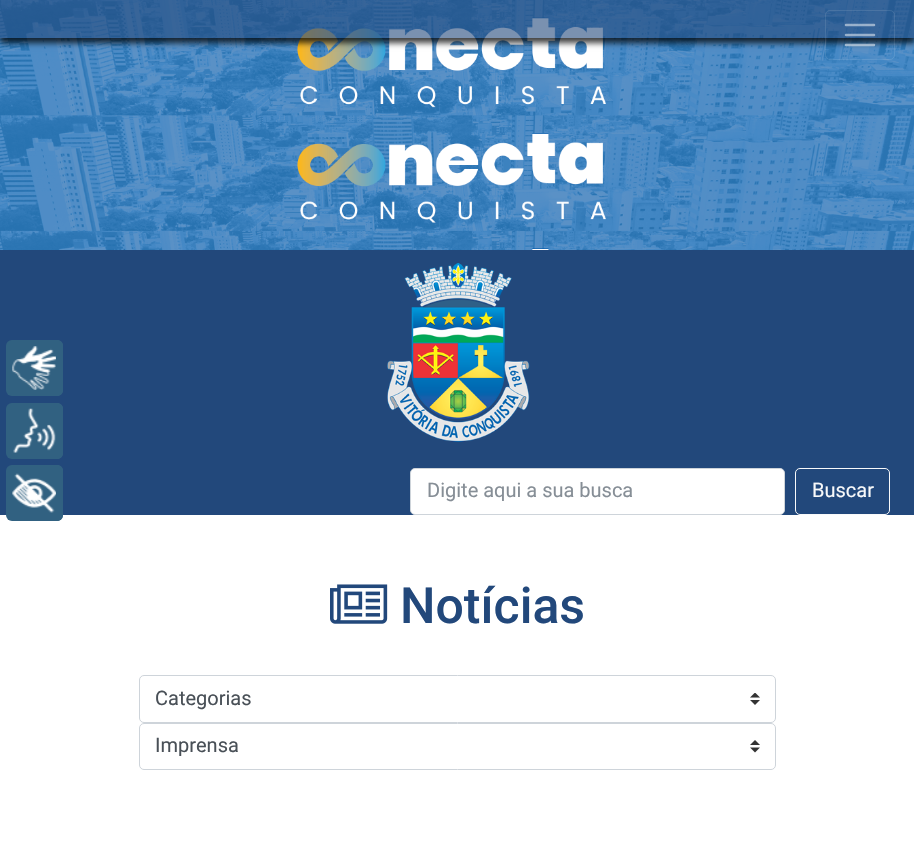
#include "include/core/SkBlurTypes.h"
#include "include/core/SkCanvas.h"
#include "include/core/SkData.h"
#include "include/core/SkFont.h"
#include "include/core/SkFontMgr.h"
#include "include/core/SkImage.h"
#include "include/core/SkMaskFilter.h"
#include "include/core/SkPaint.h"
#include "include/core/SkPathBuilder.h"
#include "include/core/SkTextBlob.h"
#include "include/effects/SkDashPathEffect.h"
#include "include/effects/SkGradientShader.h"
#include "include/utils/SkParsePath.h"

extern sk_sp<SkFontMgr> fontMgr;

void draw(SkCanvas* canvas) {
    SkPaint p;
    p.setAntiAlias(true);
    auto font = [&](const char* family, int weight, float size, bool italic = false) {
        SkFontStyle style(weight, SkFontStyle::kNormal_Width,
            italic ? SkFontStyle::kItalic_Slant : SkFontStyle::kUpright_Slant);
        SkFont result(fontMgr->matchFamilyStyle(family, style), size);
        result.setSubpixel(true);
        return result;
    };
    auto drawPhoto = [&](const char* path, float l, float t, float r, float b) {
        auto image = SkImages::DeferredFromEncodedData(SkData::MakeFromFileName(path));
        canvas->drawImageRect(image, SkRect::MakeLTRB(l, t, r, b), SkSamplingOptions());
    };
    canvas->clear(0xFFFFFFFF);
    drawPhoto("media/1.png", 0, 0, 914, 250);
    canvas->save();
    canvas->clipPath(SkPathBuilder(SkPathFillType::kEvenOdd).moveTo(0, 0).lineTo(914, 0).lineTo(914, 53).lineTo(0, 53).close().moveTo(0, 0).lineTo(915, 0).lineTo(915, 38).lineTo(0, 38).close().detach(), true);
    p.setColor(0xBF000000);
    p.setMaskFilter(SkMaskFilter::MakeBlur(kNormal_SkBlurStyle, 3));
    canvas->drawRect(SkRect::MakeLTRB(0, 5, 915, 43), p);
    p.setMaskFilter(nullptr);
    canvas->restore();
    p.setColor(0x9922487B);
    canvas->drawRect(SkRect::MakeLTRB(0, 0, 914, 38), p);
    p.setStyle(SkPaint::kStroke_Style);
    p.setStrokeWidth(1);
    p.setColor(0x1AFFFFFF);
    canvas->drawRoundRect(SkRect::MakeLTRB(825.5f, 10.5f, 894.5f, 59.5f), 4.5f, 4.5f, p);
    p.setStrokeWidth(2.5f);
    p.setStrokeCap(SkPaint::kRound_Cap);
    p.setColor(0x80FFFFFF);
    canvas->drawPath(SkPathBuilder().moveTo(846, 25).lineTo(874, 25).moveTo(846, 35).lineTo(874, 35).moveTo(846, 45).lineTo(874, 45).detach(), p);
    p.setStyle(SkPaint::kFill_Style);
    p.setColor(0xFF22487B);
    canvas->drawRect(SkRect::MakeLTRB(0, 250, 914, 515), p);
    p.setColor(0xFF316181);
    canvas->drawRoundRect(SkRect::MakeLTRB(6, 340, 63, 396), 6, 6, p);
    drawPhoto("media/2.png", 12, 346, 56, 390);
    canvas->drawPath(SkPathBuilder().moveTo(56, 340).lineTo(57, 340).cubicTo(60.5f, 340, 63, 342.5f, 63, 346).lineTo(63, 390).cubicTo(63, 393.5f, 60.5f, 396, 57, 396).lineTo(56, 396).close().detach(), p);
    canvas->drawRoundRect(SkRect::MakeLTRB(6, 403, 63, 459), 6, 6, p);
    drawPhoto("media/3.png", 13, 408, 56, 453);
    canvas->drawPath(SkPathBuilder().moveTo(56, 403).lineTo(57, 403).cubicTo(60.5f, 403, 63, 405.5f, 63, 409).lineTo(63, 453).cubicTo(63, 456.5f, 60.5f, 459, 57, 459).lineTo(56, 459).close().detach(), p);
    canvas->drawRoundRect(SkRect::MakeLTRB(6, 465, 63, 521), 6, 6, p);
    drawPhoto("media/4.png", 12, 473, 56, 513);
    canvas->drawPath(SkPathBuilder().moveTo(56, 465).lineTo(57, 465).cubicTo(60.5f, 465, 63, 467.5f, 63, 471).lineTo(63, 515).cubicTo(63, 518.5f, 60.5f, 521, 57, 521).lineTo(56, 521).close().detach(), p);
    drawPhoto("media/5.png", 387, 263, 530, 442);
    p.setColor(0xFFFFFFFF);
    canvas->drawRoundRect(SkRect::MakeLTRB(410.5f, 468.5f, 784.5f, 514.5f), 4.5f, 4.5f, p);
    p.setStyle(SkPaint::kStroke_Style);
    p.setStrokeWidth(1);
    p.setStrokeCap(SkPaint::kButt_Cap);
    p.setColor(0xFFCED4DA);
    canvas->drawRoundRect(SkRect::MakeLTRB(410.5f, 468.5f, 784.5f, 514.5f), 4.5f, 4.5f, p);
    auto font1 = font("Roboto", 400, 20);
    p.setStyle(SkPaint::kFill_Style);
    p.setColor(0xFF868E96);
    canvas->drawString("Digite aqui a sua busca", 427, 497, font1, p);
    p.setStyle(SkPaint::kStroke_Style);
    p.setColor(0xFFF8F9FA);
    canvas->drawRoundRect(SkRect::MakeLTRB(795.5f, 468.5f, 889.5f, 514.5f), 4.5f, 4.5f, p);
    p.setStyle(SkPaint::kFill_Style);
    canvas->drawString("Buscar", 812, 497, font1, p);
    drawPhoto("media/6.png", 330, 584, 388, 624);
    auto font2 = font("Roboto", 500, 50);
    p.setColor(0xFF22487B);
    canvas->drawString("Notícias", 400, 623, font2, p);
    drawPhoto("media/7.png", 750, 693, 760, 705);
    p.setStyle(SkPaint::kStroke_Style);
    p.setColor(0xFFCED4DA);
    canvas->drawRoundRect(SkRect::MakeLTRB(139.5f, 675.5f, 775.5f, 722.5f), 4.5f, 4.5f, p);
    p.setStyle(SkPaint::kFill_Style);
    p.setColor(0xFF495057);
    canvas->drawString("Categorias", 155, 705, font1, p);
    drawPhoto("media/8.png", 750, 740, 760, 753);
    p.setStyle(SkPaint::kStroke_Style);
    p.setColor(0xFFCED4DA);
    canvas->drawRoundRect(SkRect::MakeLTRB(139.5f, 723.5f, 775.5f, 769.5f), 4.5f, 4.5f, p);
    p.setStyle(SkPaint::kFill_Style);
    p.setColor(0xFF495057);
    canvas->drawString("Imprensa", 155, 752, font1, p);
}
